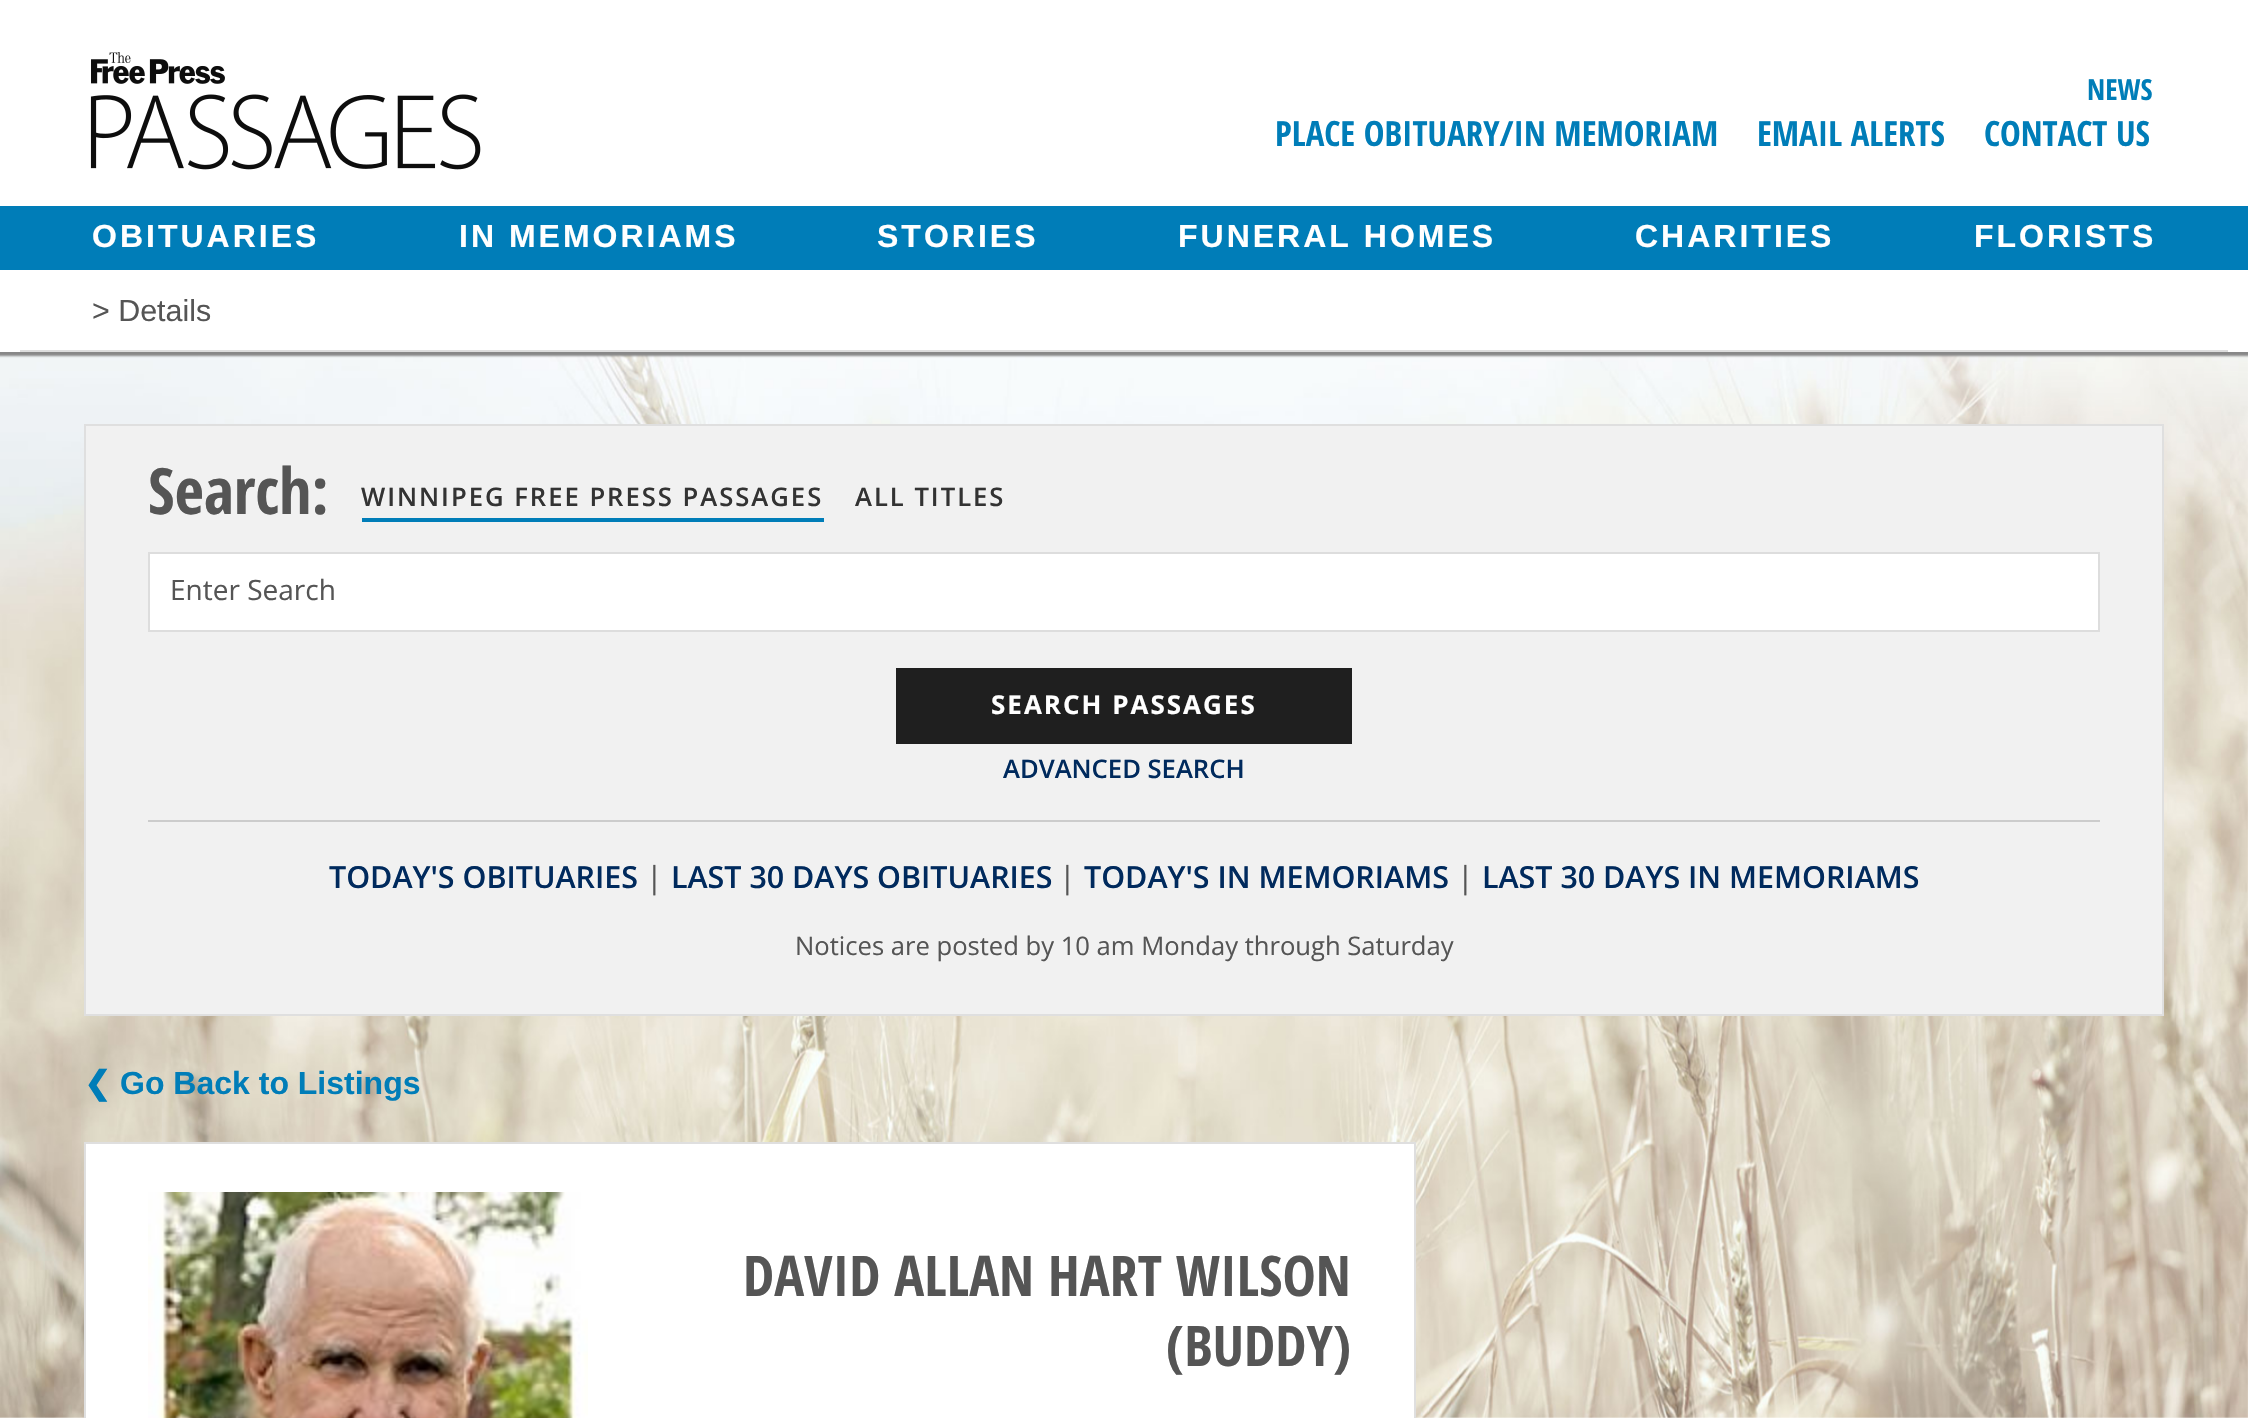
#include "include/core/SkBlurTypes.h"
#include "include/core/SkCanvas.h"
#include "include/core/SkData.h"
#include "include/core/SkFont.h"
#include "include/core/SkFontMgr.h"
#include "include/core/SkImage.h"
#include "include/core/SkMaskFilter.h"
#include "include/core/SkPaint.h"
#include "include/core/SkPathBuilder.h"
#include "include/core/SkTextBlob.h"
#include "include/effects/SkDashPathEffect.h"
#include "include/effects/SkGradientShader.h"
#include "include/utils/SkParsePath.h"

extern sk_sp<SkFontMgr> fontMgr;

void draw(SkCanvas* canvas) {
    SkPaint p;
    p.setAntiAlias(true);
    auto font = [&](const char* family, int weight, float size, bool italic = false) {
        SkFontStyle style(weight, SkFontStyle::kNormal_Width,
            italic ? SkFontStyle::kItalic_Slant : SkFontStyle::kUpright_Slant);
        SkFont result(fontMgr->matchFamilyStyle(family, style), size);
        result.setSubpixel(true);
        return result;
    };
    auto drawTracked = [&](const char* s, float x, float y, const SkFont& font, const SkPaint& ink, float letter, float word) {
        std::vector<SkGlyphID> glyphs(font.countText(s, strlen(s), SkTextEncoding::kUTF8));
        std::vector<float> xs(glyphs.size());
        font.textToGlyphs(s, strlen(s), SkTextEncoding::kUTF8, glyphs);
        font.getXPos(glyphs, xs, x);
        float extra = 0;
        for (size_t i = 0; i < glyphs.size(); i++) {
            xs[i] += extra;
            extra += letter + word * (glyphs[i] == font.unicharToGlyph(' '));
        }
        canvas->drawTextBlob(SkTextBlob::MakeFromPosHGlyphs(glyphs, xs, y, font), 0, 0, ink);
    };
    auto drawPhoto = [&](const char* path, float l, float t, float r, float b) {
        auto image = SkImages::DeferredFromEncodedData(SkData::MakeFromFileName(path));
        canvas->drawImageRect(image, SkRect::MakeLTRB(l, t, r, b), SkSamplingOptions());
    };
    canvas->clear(0xFFFFFFFF);
    drawPhoto("media/1.png", 0, 352, 2248, 1418);
    p.setColor(0xFF888888);
    p.setMaskFilter(SkMaskFilter::MakeBlur(kNormal_SkBlurStyle, 1));
    canvas->drawRect(SkRect::MakeLTRB(-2, 0, 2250, 356), p);
    p.setMaskFilter(nullptr);
    p.setColor(0xFFFFFFFF);
    canvas->drawRect(SkRect::MakeLTRB(0, 0, 2248, 352), p);
    drawPhoto("media/2.png", 90, 52, 481, 170);
    auto font1 = font("Open Sans Condensed", 700, 29);
    p.setColor(0xFF007DB8);
    canvas->drawString("NEWS", 2087, 100, font1, p);
    auto font2 = font("Open Sans Condensed", 700, 34.8f);
    {
        const struct { const char* s; float x, y; } items[] = {
            {"PLACE OBITUARY/IN MEMORIAM", 1275, 146},
            {"EMAIL ALERTS", 1757, 146},
            {"CONTACT US", 1984, 146},
        };
        for (auto [s, x, y] : items) {
            canvas->drawString(s, x, y, font2, p);
        }
    }
    canvas->drawRect(SkRect::MakeLTRB(0, 206, 2248, 270), p);
    auto font3 = font("Liberation Sans", 700, 32);
    p.setColor(0xFFFFFFFF);
    {
        const struct { const char* s; float x, y; } items[] = {
            {"OBITUARIES", 92, 247},
            {"IN MEMORIAMS", 459, 247},
            {"STORIES", 877, 247},
            {"FUNERAL HOMES", 1178, 247},
            {"CHARITIES", 1635, 247},
            {"FLORISTS", 1974, 247},
        };
        for (auto [s, x, y] : items) {
            drawTracked(s, x, y, font3, p, 3, 0);
        }
    }
    p.setColor(0xFFDDDDDD);
    canvas->drawRect(SkRect::MakeLTRB(20, 350, 2228, 352), p);
    auto font4 = font("Liberation Sans", 400, 30.4f);
    p.setColor(0xFF555555);
    canvas->drawString("> Details", 92, 321, font4, p);
    p.setColor(0xFFF1F1F1);
    canvas->drawRect(SkRect::MakeLTRB(85, 425, 2163, 1015), p);
    p.setStyle(SkPaint::kStroke_Style);
    p.setStrokeWidth(2);
    p.setColor(0xFFDFDFDF);
    canvas->drawRect(SkRect::MakeLTRB(85, 425, 2163, 1015), p);
    auto font5 = font("Open Sans Condensed", 700, 64);
    p.setStyle(SkPaint::kFill_Style);
    p.setColor(0xFF555555);
    canvas->drawString("Search:", 148, 514, font5, p);
    auto font6 = font("Open Sans", 600, 25.6f);
    p.setColor(0xFF333333);
    drawTracked("WINNIPEG FREE PRESS PASSAGES", 361, 506, font6, p, 2, 0);
    p.setColor(0xFF007DB8);
    canvas->drawRect(SkRect::MakeLTRB(362, 518, 824, 522), p);
    p.setColor(0xFF333333);
    drawTracked("ALL TITLES", 855, 506, font6, p, 2, 0);
    p.setColor(0xFFFFFFFF);
    canvas->drawRect(SkRect::MakeLTRB(149, 553, 2099, 631), p);
    p.setStyle(SkPaint::kStroke_Style);
    p.setColor(0xFFDDDDDD);
    canvas->drawRect(SkRect::MakeLTRB(149, 553, 2099, 631), p);
    auto font7 = font("Open Sans", 400, 28);
    p.setStyle(SkPaint::kFill_Style);
    p.setColor(0xFF555555);
    canvas->drawString("Enter Search", 170, 600, font7, p);
    p.setColor(0xFF1F1F1F);
    canvas->drawRect(SkRect::MakeLTRB(896, 668, 1352, 744), p);
    auto font8 = font("Open Sans", 700, 26);
    p.setColor(0xFFFFFFFF);
    drawTracked("SEARCH PASSAGES", 991, 714, font8, p, 2, 0);
    p.setColor(0xFF002A5D);
    canvas->drawString("ADVANCED SEARCH", 1003, 778, font6, p);
    p.setColor(0xFFCCCCCC);
    canvas->drawRect(SkRect::MakeLTRB(148, 820, 2100, 822), p);
    auto font9 = font("Open Sans", 600, 30.4f);
    p.setColor(0xFF002A5D);
    canvas->drawString("TODAY'S OBITUARIES", 329, 888, font9, p);
    auto font10 = font("Open Sans", 400, 30.4f);
    p.setColor(0xFF555555);
    canvas->drawString("|", 646, 888, font10, p);
    p.setColor(0xFF002A5D);
    canvas->drawString("LAST 30 DAYS OBITUARIES", 671, 888, font9, p);
    p.setColor(0xFF555555);
    canvas->drawString("|", 1059, 888, font10, p);
    p.setColor(0xFF002A5D);
    canvas->drawString("TODAY'S IN MEMORIAMS", 1084, 888, font9, p);
    p.setColor(0xFF555555);
    canvas->drawString("|", 1457, 888, font10, p);
    p.setColor(0xFF002A5D);
    canvas->drawString("LAST 30 DAYS IN MEMORIAMS", 1482, 888, font9, p);
    auto font11 = font("Open Sans", 400, 25.6f);
    p.setColor(0xFF555555);
    canvas->drawString("Notices are posted by 10 am Monday through Saturday", 795, 955, font11, p);
    auto font12 = font("DejaVu Sans", 700, 32);
    p.setColor(0xFF007DB8);
    canvas->drawString("❮", 84, 1094, font12, p);
    canvas->drawString("Go Back to Listings", 120, 1094, font3, p);
    p.setColor(0xFFFFFFFF);
    canvas->drawRect(SkRect::MakeLTRB(85, 1143, 1415, 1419), p);
    p.setStyle(SkPaint::kStroke_Style);
    p.setColor(0xFFDFDFDF);
    canvas->drawRect(SkRect::MakeLTRB(85, 1143, 1415, 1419), p);
    drawPhoto("media/3.png", 148, 1192, 588, 1418);
    auto font13 = font("Open Sans Condensed", 700, 56);
    p.setStyle(SkPaint::kFill_Style);
    p.setColor(0xFF555555);
    canvas->drawString("DAVID ALLAN HART WILSON", 743, 1296, font13, p);
    canvas->drawString("(BUDDY)", 1166, 1366, font13, p);
}
